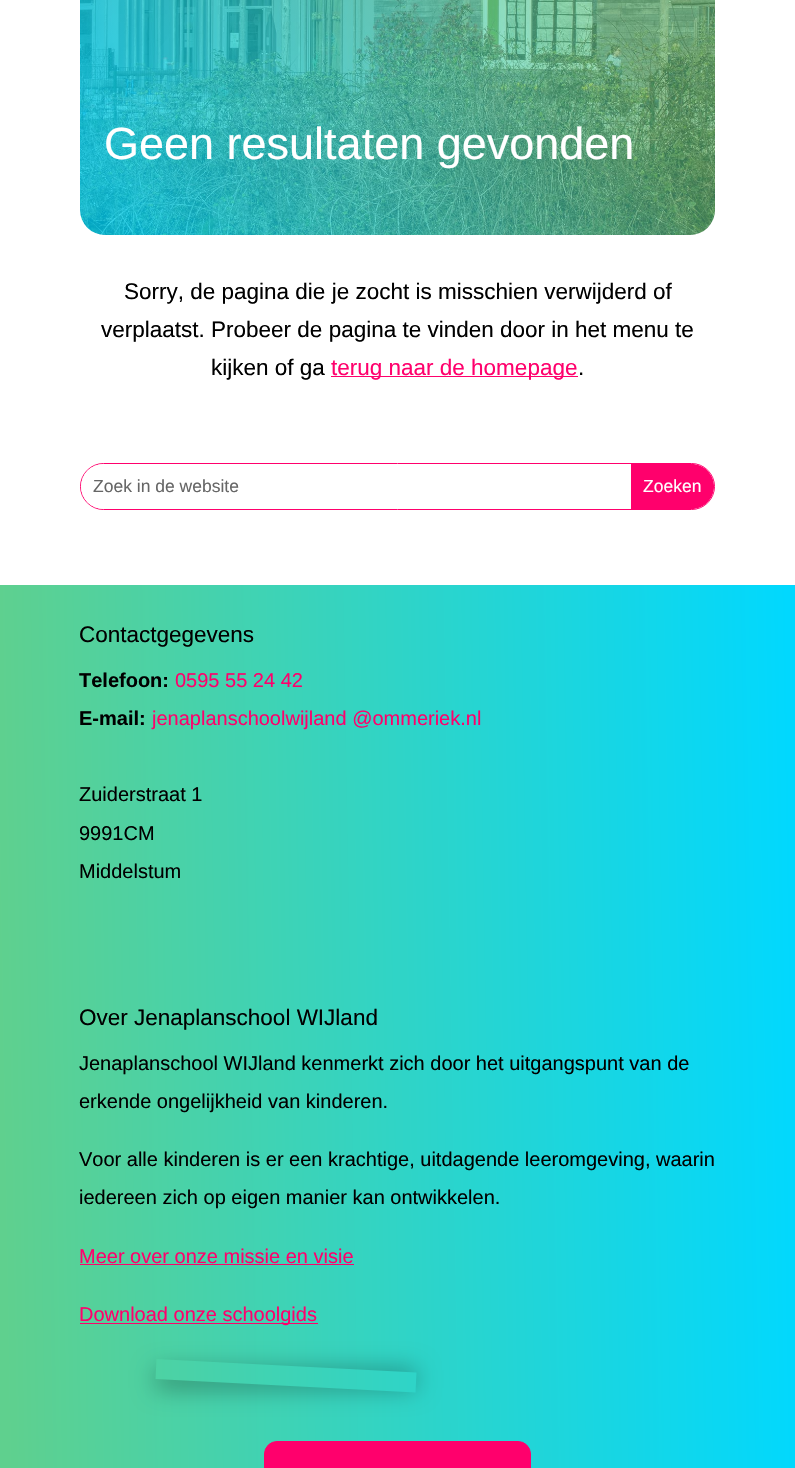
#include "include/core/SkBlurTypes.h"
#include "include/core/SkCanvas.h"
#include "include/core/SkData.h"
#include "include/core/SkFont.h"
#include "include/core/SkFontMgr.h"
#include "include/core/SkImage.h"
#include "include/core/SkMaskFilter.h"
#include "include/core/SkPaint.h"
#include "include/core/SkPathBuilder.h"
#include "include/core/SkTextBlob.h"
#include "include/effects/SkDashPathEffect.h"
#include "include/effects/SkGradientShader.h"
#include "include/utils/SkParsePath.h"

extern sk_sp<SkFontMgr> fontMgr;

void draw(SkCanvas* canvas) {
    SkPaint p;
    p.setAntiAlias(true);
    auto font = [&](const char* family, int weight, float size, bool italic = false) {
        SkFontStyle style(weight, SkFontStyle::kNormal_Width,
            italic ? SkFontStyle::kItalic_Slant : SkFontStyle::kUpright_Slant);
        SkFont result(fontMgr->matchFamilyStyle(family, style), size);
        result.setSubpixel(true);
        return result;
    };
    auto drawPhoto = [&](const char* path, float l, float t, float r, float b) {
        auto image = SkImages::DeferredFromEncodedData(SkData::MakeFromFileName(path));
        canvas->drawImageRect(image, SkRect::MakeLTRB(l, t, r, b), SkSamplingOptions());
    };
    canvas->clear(0xFFFFFFFF);
    drawPhoto("media/1.png", 80, 0, 715, 235);
    auto font1 = font("Liberation Sans", 400, 45);
    p.setColor(0xFFFFFFFF);
    canvas->drawString("Geen resultaten gevonden", 104, 159, font1, p);
    auto font2 = font("Liberation Sans", 400, 22.5f);
    p.setColor(0xFF000000);
    {
        const struct { const char* s; float x, y; } items[] = {
            {"Sorry, de pagina die je zocht is misschien verwijderd of", 124, 299},
            {"verplaatst. Probeer de pagina te vinden door in het menu te", 101, 337},
            {"kijken of ga", 211, 375},
        };
        for (auto [s, x, y] : items) {
            canvas->drawString(s, x, y, font2, p);
        }
    }
    p.setColor(0xFFFF006C);
    canvas->drawRect(SkRect::MakeLTRB(331, 376, 578, 377), p);
    canvas->drawString("terug naar de homepage", 331, 375, font2, p);
    p.setColor(0xFF000000);
    canvas->drawString(".", 578, 375, font2, p);
    p.setStyle(SkPaint::kStroke_Style);
    p.setStrokeWidth(1);
    p.setColor(0xFFFF006C);
    canvas->drawRoundRect(SkRect::MakeLTRB(80.5f, 463.5f, 714.5f, 509.5f), 23, 23, p);
    p.setStyle(SkPaint::kFill_Style);
    p.setColor(0xFFFFFFFF);
    canvas->drawRoundRect(SkRect::MakeLTRB(81, 464, 714, 509), 22.5f, 22.5f, p);
    auto font3 = font("Liberation Sans", 400, 17.5f);
    p.setColor(0xFF666666);
    canvas->drawString("Zoek in de website", 93, 492, font3, p);
    p.setColor(0xFFFF006C);
    canvas->drawPath(SkPathBuilder().moveTo(631, 464).lineTo(691.5f, 464).cubicTo(704, 464, 714, 474, 714, 486.5f).cubicTo(714, 499, 704, 509, 691.5f, 509).lineTo(631, 509).close().detach(), p);
    p.setColor(0xFFFFFFFF);
    canvas->drawString("Zoeken", 643, 492, font3, p);
    {
        const SkColor colors[] = {0xFF5FD08E, 0xFF00D8FF};
        const float stops[] = {0.01f, 1};
        const SkPoint ends[] = {{-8, 1065}, {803, 1051}};
        p.setShader(SkGradientShader::MakeLinear(ends, colors, stops, 2, SkTileMode::kClamp));
        p.setAlpha(255);
    }
    canvas->drawRect(SkRect::MakeLTRB(0, 585, 795, 1468), p);
    p.setShader(nullptr);
    p.setColor(0xFF000000);
    canvas->drawString("Contactgegevens", 79, 642, font2, p);
    auto font4 = font("Liberation Sans", 700, 20);
    canvas->drawString("Telefoon:", 79, 687, font4, p);
    auto font5 = font("Liberation Sans", 400, 20);
    p.setColor(0xFFFF006C);
    canvas->drawString("0595 55 24 42", 175, 687, font5, p);
    p.setColor(0xFF000000);
    canvas->drawString("E-mail:", 79, 725, font4, p);
    p.setColor(0xFFFF006C);
    canvas->drawString("jenaplanschoolwijland @ommeriek.nl", 152, 725, font5, p);
    p.setColor(0xFF000000);
    {
        const struct { const char* s; float x, y; } items[] = {
            {"Zuiderstraat 1", 79, 801},
            {"9991CM", 79, 840},
            {"Middelstum", 79, 878},
        };
        for (auto [s, x, y] : items) {
            canvas->drawString(s, x, y, font5, p);
        }
    }
    canvas->drawString("Over Jenaplanschool WIJland", 79, 1025, font2, p);
    {
        const struct { const char* s; float x, y; } items[] = {
            {"Jenaplanschool WIJland kenmerkt zich door het uitgangspunt van de", 79, 1070},
            {"erkende ongelijkheid van kinderen.", 79, 1108},
            {"Voor alle kinderen is er een krachtige, uitdagende leeromgeving, waarin", 79, 1166},
            {"iedereen zich op eigen manier kan ontwikkelen.", 79, 1204},
        };
        for (auto [s, x, y] : items) {
            canvas->drawString(s, x, y, font5, p);
        }
    }
    p.setColor(0xFFFF006C);
    canvas->drawString("Meer over onze missie en visie", 79, 1263, font5, p);
    canvas->drawRect(SkRect::MakeLTRB(80, 1264, 354, 1265), p);
    canvas->drawRect(SkRect::MakeLTRB(80, 1323, 318, 1324), p);
    canvas->drawString("Download onze schoolgids", 79, 1321, font5, p);
    canvas->save();
    canvas->clipPath(SkPathBuilder(SkPathFillType::kEvenOdd).moveTo(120, 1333).lineTo(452, 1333).lineTo(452, 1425).lineTo(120, 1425).close().moveTo(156.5f, 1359).lineTo(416.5f, 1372.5f).lineTo(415.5f, 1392.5f).lineTo(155.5f, 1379).close().detach(), true);
    p.setColor(0x4D000000);
    p.setMaskFilter(SkMaskFilter::MakeBlur(kNormal_SkBlurStyle, 11.5f));
    canvas->drawRect(SkRect::MakeLTRB(156, 1369, 416, 1389), p);
    p.setMaskFilter(nullptr);
    canvas->restore();
    p.setColor(0xFFFF006C);
    canvas->drawRoundRect(SkRect::MakeLTRB(264.5f, 1441.5f, 530.5f, 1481.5f), 12.5f, 12.5f, p);
    p.setStyle(SkPaint::kStroke_Style);
    canvas->drawRoundRect(SkRect::MakeLTRB(264.5f, 1441.5f, 530.5f, 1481.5f), 12.5f, 12.5f, p);
}
